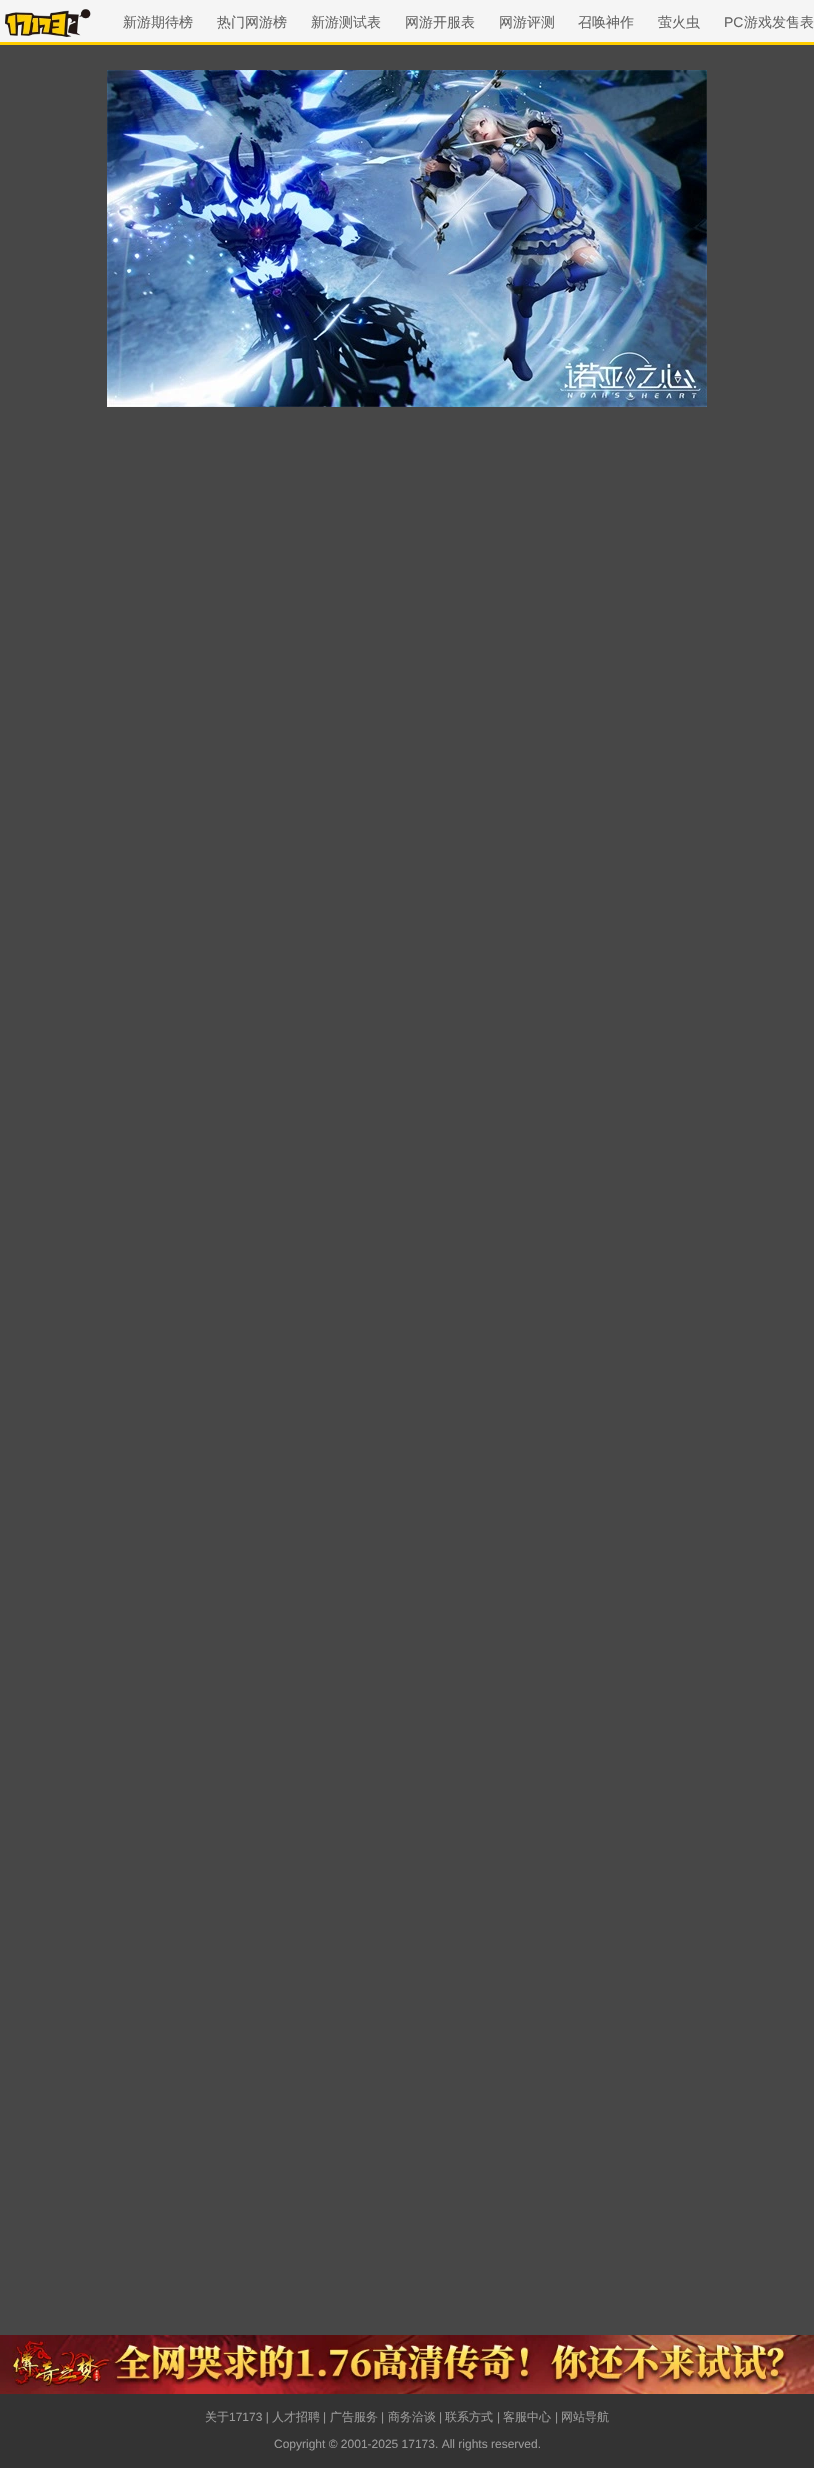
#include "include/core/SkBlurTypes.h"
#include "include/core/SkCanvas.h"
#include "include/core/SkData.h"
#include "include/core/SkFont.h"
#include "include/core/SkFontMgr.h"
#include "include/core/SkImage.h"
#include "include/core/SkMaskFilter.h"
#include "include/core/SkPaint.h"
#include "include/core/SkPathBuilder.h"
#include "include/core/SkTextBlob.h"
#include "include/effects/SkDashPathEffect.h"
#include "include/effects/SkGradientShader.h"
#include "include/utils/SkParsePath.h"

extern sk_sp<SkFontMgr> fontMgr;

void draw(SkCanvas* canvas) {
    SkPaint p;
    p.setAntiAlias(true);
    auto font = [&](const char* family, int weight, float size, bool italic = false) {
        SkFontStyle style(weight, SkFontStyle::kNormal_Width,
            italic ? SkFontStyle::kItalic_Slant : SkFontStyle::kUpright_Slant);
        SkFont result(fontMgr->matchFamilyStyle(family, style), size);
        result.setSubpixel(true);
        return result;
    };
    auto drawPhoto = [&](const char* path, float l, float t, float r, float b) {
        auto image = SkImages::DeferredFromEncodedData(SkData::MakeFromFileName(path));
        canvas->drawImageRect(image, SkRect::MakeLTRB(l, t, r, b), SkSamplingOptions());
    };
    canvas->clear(0xFF474747);
    p.setColor(0xFFF5F5F5);
    canvas->drawRect(SkRect::MakeLTRB(0, 0, 814, 42), p);
    p.setColor(0xFFFFCD00);
    canvas->drawRect(SkRect::MakeLTRB(0, 42, 814, 45), p);
    drawPhoto("media/1.png", 5, 9, 91, 37);
    auto font1 = font("WenQuanYi Zen Hei", 500, 14);
    p.setColor(0xFF666666);
    {
        const struct { const char* s; float x, y; } items[] = {
            {"新游期待榜", 123, 27},
            {"热门网游榜", 217, 27},
            {"新游测试表", 311, 27},
            {"网游开服表", 405, 27},
            {"网游评测", 499, 27},
            {"召唤神作", 578, 27},
            {"萤火虫", 658, 27},
        };
        for (auto [s, x, y] : items) {
            canvas->drawString(s, x, y, font1, p);
        }
    }
    auto font2 = font("Liberation Sans", 400, 14);
    canvas->drawString("PC", 724, 27, font2, p);
    canvas->drawString("游戏发售表", 744, 27, font1, p);
    drawPhoto("media/2.png", 107, 70, 707, 407);
    drawPhoto("media/3.png", 0, 2335, 814, 2394);
    p.setColor(0xFF333333);
    canvas->drawRect(SkRect::MakeLTRB(0, 2394, 814, 2468), p);
    auto font3 = font("WenQuanYi Zen Hei", 500, 12);
    p.setColor(0xFF999999);
    canvas->drawString("关于", 205, 2421, font3, p);
    auto font4 = font("Liberation Sans", 400, 12);
    canvas->drawString("17173 |", 229, 2421, font4, p);
    canvas->drawString("人才招聘", 272, 2421, font3, p);
    canvas->drawString("|", 323, 2421, font4, p);
    canvas->drawString("广告服务", 330, 2421, font3, p);
    canvas->drawString("|", 381, 2421, font4, p);
    canvas->drawString("商务洽谈", 388, 2421, font3, p);
    canvas->drawString("|", 439, 2421, font4, p);
    canvas->drawString("联系方式", 445, 2421, font3, p);
    canvas->drawString("|", 497, 2421, font4, p);
    canvas->drawString("客服中心", 503, 2421, font3, p);
    canvas->drawString("|", 555, 2421, font4, p);
    canvas->drawString("网站导航", 561, 2421, font3, p);
    canvas->drawString("Copyright © 2001-2025 17173. All rights reserved.", 274, 2448, font4, p);
}
